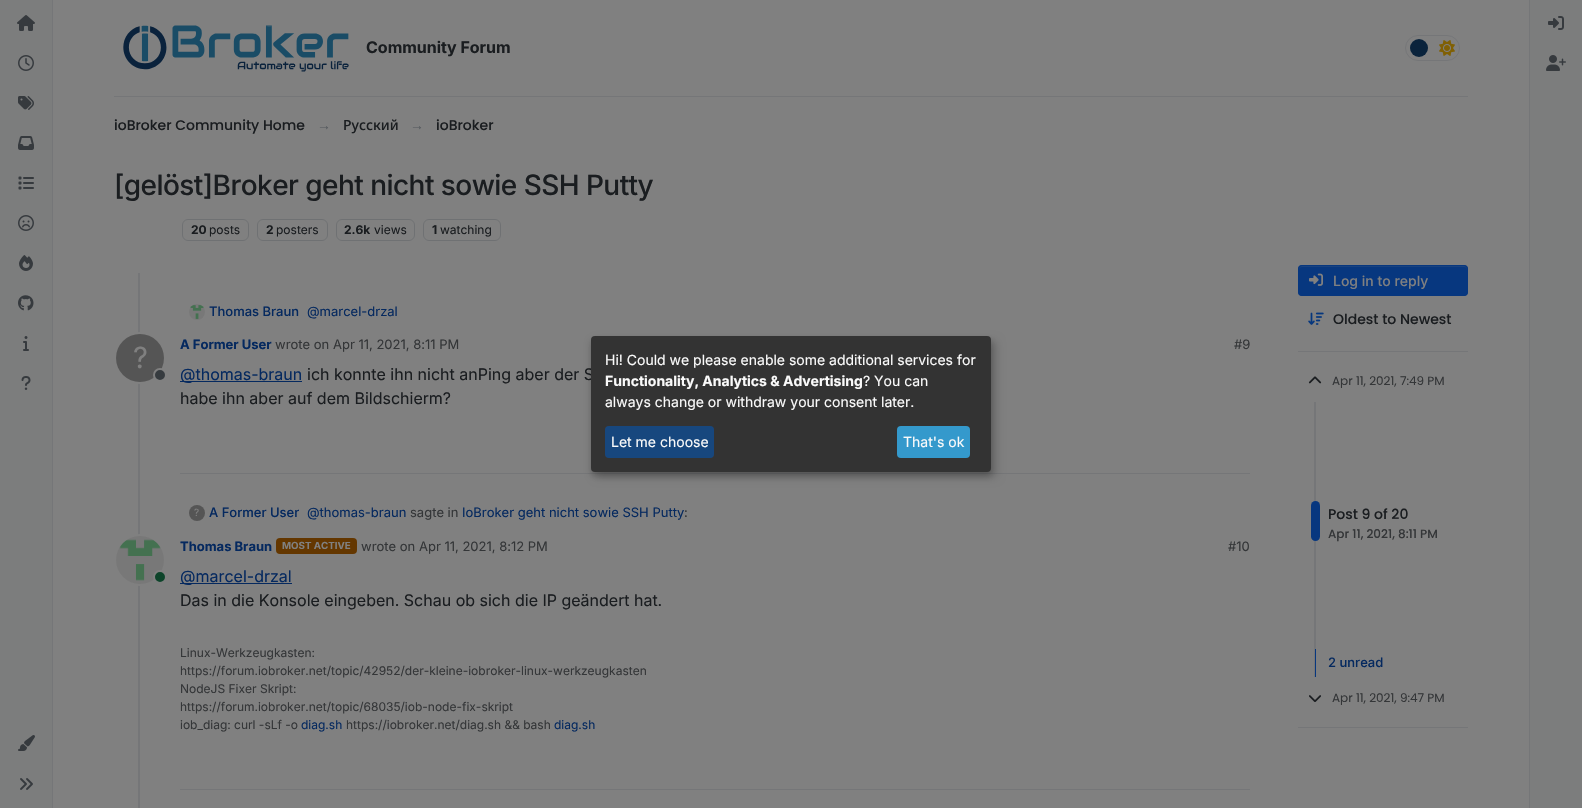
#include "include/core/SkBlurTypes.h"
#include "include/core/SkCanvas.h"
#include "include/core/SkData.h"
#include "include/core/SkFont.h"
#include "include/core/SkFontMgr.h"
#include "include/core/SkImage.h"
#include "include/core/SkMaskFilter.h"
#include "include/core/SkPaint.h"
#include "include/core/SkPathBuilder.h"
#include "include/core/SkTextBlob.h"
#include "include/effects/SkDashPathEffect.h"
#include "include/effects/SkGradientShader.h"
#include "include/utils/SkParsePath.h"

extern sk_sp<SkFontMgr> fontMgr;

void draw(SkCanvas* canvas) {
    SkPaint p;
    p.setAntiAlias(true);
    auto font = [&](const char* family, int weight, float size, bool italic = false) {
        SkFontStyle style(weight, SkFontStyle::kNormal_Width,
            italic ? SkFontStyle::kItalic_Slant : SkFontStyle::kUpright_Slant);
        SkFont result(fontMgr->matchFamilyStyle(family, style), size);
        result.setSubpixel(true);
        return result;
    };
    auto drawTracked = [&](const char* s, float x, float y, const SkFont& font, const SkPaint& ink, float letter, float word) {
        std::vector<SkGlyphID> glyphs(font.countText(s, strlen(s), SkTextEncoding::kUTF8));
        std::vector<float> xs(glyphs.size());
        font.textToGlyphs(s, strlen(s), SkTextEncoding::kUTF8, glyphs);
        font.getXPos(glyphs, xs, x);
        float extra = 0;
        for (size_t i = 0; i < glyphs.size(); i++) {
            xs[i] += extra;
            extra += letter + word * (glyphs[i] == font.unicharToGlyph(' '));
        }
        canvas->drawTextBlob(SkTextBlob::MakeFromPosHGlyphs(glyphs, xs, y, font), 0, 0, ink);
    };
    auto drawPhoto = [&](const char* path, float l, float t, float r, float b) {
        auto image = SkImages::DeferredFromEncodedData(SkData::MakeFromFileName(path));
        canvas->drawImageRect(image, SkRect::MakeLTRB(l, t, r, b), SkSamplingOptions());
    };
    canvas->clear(0xFF808080);
    p.setColor(0xFF7C7D7D);
    canvas->drawRect(SkRect::MakeLTRB(0, 0, 52, 808), p);
    p.setColor(0xFF757678);
    canvas->drawRect(SkRect::MakeLTRB(52, 0, 53, 808), p);
    drawPhoto("media/1.png", 17, 15, 35, 31);
    drawPhoto("media/2.png", 18, 55, 34, 71);
    drawPhoto("media/3.png", 18, 96, 34, 110);
    drawPhoto("media/4.png", 18, 136, 34, 150);
    drawPhoto("media/5.png", 18, 176, 34, 190);
    drawPhoto("media/6.png", 18, 215, 34, 231);
    drawPhoto("media/7.png", 19, 255, 33, 271);
    drawPhoto("media/8.png", 18, 295, 34, 311);
    drawPhoto("media/9.png", 23, 336, 29, 351);
    drawPhoto("media/10.png", 21, 376, 31, 390);
    drawPhoto("media/11.png", 18, 735, 35, 751);
    drawPhoto("media/12.png", 20, 778, 33, 790);
    canvas->drawRect(SkRect::MakeLTRB(114, 96, 1468, 97), p);
    drawPhoto("media/13.png", 123, 25, 349, 72);
    auto font1 = font("Inter", 700, 16);
    p.setColor(0xFF1A1D20);
    canvas->drawString("Community Forum", 366, 53, font1, p);
    p.setStyle(SkPaint::kStroke_Style);
    p.setStrokeWidth(1);
    p.setColor(0xFF757678);
    canvas->drawRoundRect(SkRect::MakeLTRB(1405.5f, 35.5f, 1459.5f, 60.5f), 12.5f, 12.5f, p);
    p.setStyle(SkPaint::kFill_Style);
    p.setColor(0xFF0A233C);
    canvas->drawCircle(1419, 48, 9, p);
    drawPhoto("media/14.png", 1439, 40, 1455, 56);
    auto font2 = font("Poppins", 500, 14);
    p.setColor(0xFF1A1D20);
    canvas->drawString("ioBroker Community Home", 114, 130, font2, p);
    auto font3 = font("Liberation Sans", 400, 14);
    p.setColor(0xFF575B5F);
    canvas->drawString("→", 317, 130, font3, p);
    auto font4 = font("Noto Sans", 500, 14);
    p.setColor(0xFF1A1D20);
    canvas->drawString("Русский", 343, 130, font4, p);
    p.setColor(0xFF575B5F);
    canvas->drawString("→", 410, 130, font3, p);
    p.setColor(0xFF1A1D20);
    canvas->drawString("ioBroker", 436, 130, font2, p);
    auto font5 = font("Inter", 500, 28);
    drawTracked("[gelöst]Broker geht nicht sowie SSH Putty", 114, 195, font5, p, -0.55f, 0);
    p.setStyle(SkPaint::kStroke_Style);
    p.setColor(0xFF6F7173);
    canvas->drawRoundRect(SkRect::MakeLTRB(182.5f, 219.5f, 248.5f, 240.5f), 5.5f, 5.5f, p);
    auto font6 = font("Inter", 700, 12);
    p.setStyle(SkPaint::kFill_Style);
    p.setColor(0xFF1A1D20);
    canvas->drawString("20", 191, 234, font6, p);
    auto font7 = font("Inter", 400, 12);
    canvas->drawString("posts", 209, 234, font7, p);
    p.setStyle(SkPaint::kStroke_Style);
    p.setColor(0xFF6F7173);
    canvas->drawRoundRect(SkRect::MakeLTRB(257.5f, 219.5f, 327.5f, 240.5f), 5.5f, 5.5f, p);
    p.setStyle(SkPaint::kFill_Style);
    p.setColor(0xFF1A1D20);
    canvas->drawString("2", 266, 234, font6, p);
    canvas->drawString("posters", 276, 234, font7, p);
    p.setStyle(SkPaint::kStroke_Style);
    p.setColor(0xFF6F7173);
    canvas->drawRoundRect(SkRect::MakeLTRB(336.5f, 219.5f, 414.5f, 240.5f), 5.5f, 5.5f, p);
    p.setStyle(SkPaint::kFill_Style);
    p.setColor(0xFF1A1D20);
    canvas->drawString("2.6k", 344, 234, font6, p);
    canvas->drawString("views", 374, 234, font7, p);
    p.setStyle(SkPaint::kStroke_Style);
    p.setColor(0xFF6F7173);
    canvas->drawRoundRect(SkRect::MakeLTRB(423.5f, 219.5f, 500.5f, 240.5f), 5.5f, 5.5f, p);
    p.setStyle(SkPaint::kFill_Style);
    p.setColor(0xFF1A1D20);
    canvas->drawString("1", 432, 234, font6, p);
    canvas->drawString("watching", 440, 234, font7, p);
    p.setColor(0xFF757678);
    canvas->drawRect(SkRect::MakeLTRB(138, 273, 140, 808), p);
    drawPhoto("media/15.png", 189, 304, 205, 320);
    auto font8 = font("Inter", 500, 13);
    p.setColor(0xFF05295F);
    canvas->drawString("Thomas Braun", 209, 316, font8, p);
    auto font9 = font("Inter", 400, 13);
    canvas->drawString("@marcel-drzal", 307, 316, font9, p);
    p.setStyle(SkPaint::kStroke_Style);
    p.setStrokeWidth(2);
    p.setColor(0xFF808080);
    canvas->drawCircle(140, 358, 25, p);
    p.setStyle(SkPaint::kFill_Style);
    p.setColor(0xFF555555);
    canvas->drawCircle(140, 358, 24, p);
    auto font10 = font("Inter", 400, 29);
    p.setColor(0xFF808080);
    canvas->drawString("?", 133, 368, font10, p);
    p.setColor(0xFF363B3F);
    canvas->drawCircle(160, 375, 6, p);
    p.setStyle(SkPaint::kStroke_Style);
    p.setColor(0xFF808080);
    canvas->drawCircle(160, 375, 6, p);
    auto font11 = font("Inter", 700, 13);
    p.setStyle(SkPaint::kFill_Style);
    p.setColor(0xFF05295F);
    canvas->drawString("A Former User", 180, 349, font11, p);
    p.setColor(0xFF343638);
    canvas->drawString("wrote on Apr 11, 2021, 8:11 PM", 275, 349, font9, p);
    canvas->drawString("#9", 1234, 349, font9, p);
    p.setColor(0xFF05295F);
    canvas->drawRect(SkRect::MakeLTRB(180, 381, 302, 382), p);
    auto font12 = font("Inter", 400, 16);
    canvas->drawString("@thomas-braun", 180, 380, font12, p);
    p.setColor(0xFF1A1D20);
    canvas->drawString("ich konnte ihn nicht anPing aber der S", 307, 380, font12, p);
    canvas->drawString("habe ihn aber auf dem Bildschierm?", 180, 404, font12, p);
    p.setColor(0xFF757678);
    canvas->drawRect(SkRect::MakeLTRB(180, 473, 1250, 474), p);
    p.setColor(0xFF555555);
    canvas->drawCircle(197, 513, 8, p);
    auto font13 = font("Inter", 400, 10);
    p.setColor(0xFF808080);
    canvas->drawString("?", 194, 516, font13, p);
    p.setColor(0xFF05295F);
    canvas->drawString("A Former User", 209, 517, font8, p);
    canvas->drawString("@thomas-braun", 307, 517, font9, p);
    p.setColor(0xFF343638);
    canvas->drawString("sagte in", 410, 517, font9, p);
    p.setColor(0xFF05295F);
    canvas->drawString("IoBroker geht nicht sowie SSH Putty", 462, 517, font9, p);
    p.setColor(0xFF343638);
    canvas->drawString(":", 684, 517, font9, p);
    p.setStyle(SkPaint::kStroke_Style);
    p.setColor(0xFF808080);
    canvas->drawCircle(140, 560, 25, p);
    drawPhoto("media/16.png", 116, 536, 164, 584);
    p.setStyle(SkPaint::kFill_Style);
    p.setColor(0xFF0D442A);
    canvas->drawCircle(160, 577, 6, p);
    p.setStyle(SkPaint::kStroke_Style);
    p.setColor(0xFF808080);
    canvas->drawCircle(160, 577, 6, p);
    p.setStyle(SkPaint::kFill_Style);
    p.setColor(0xFF05295F);
    canvas->drawString("Thomas Braun", 180, 551, font11, p);
    p.setColor(0xFF643700);
    canvas->drawRoundRect(SkRect::MakeLTRB(276, 538, 357, 554), 4, 4, p);
    auto font14 = font("Inter", 700, 9.75f);
    p.setColor(0xFF808080);
    canvas->drawString("MOST ACTIVE", 282, 549, font14, p);
    p.setColor(0xFF343638);
    canvas->drawString("wrote on Apr 11, 2021, 8:12 PM", 361, 551, font9, p);
    canvas->drawString("#10", 1228, 551, font9, p);
    p.setColor(0xFF05295F);
    canvas->drawRect(SkRect::MakeLTRB(180, 583, 292, 584), p);
    canvas->drawString("@marcel-drzal", 180, 582, font12, p);
    p.setColor(0xFF1A1D20);
    canvas->drawString("Das in die Konsole eingeben. Schau ob sich die IP geändert hat.", 180, 606, font12, p);
    p.setColor(0xFF757678);
    canvas->drawRect(SkRect::MakeLTRB(180, 789, 1250, 790), p);
    p.setColor(0xFF343638);
    {
        const struct { const char* s; float x, y; } items[] = {
            {"Linux-Werkzeugkasten:", 180, 657},
            {"https://forum.iobroker.net/topic/42952/der-kleine-iobroker-linux-werkzeugkasten", 180, 675},
            {"NodeJS Fixer Skript:", 180, 693},
            {"https://forum.iobroker.net/topic/68035/iob-node-fix-skript", 180, 711},
            {"iob_diag: curl -sLf -o", 180, 729},
        };
        for (auto [s, x, y] : items) {
            canvas->drawString(s, x, y, font7, p);
        }
    }
    p.setColor(0xFF05295F);
    canvas->drawString("diag.sh", 301, 729, font7, p);
    p.setColor(0xFF343638);
    canvas->drawString("https://iobroker.net/diag.sh && bash", 346, 729, font7, p);
    p.setColor(0xFF05295F);
    canvas->drawString("diag.sh", 554, 729, font7, p);
    p.setColor(0xFF07377F);
    canvas->drawRoundRect(SkRect::MakeLTRB(1298, 265, 1468, 296), 4, 4, p);
    p.setColor(0xFF19427F);
    canvas->drawPath(SkPathBuilder().moveTo(1302, 267).lineTo(1464, 267).cubicTo(1466, 267, 1467, 268, 1467, 270).lineTo(1467, 269).cubicTo(1467, 267, 1466, 266, 1464, 266).lineTo(1302, 266).cubicTo(1300, 266, 1299, 267, 1299, 269).lineTo(1299, 270).cubicTo(1299, 268, 1300, 267, 1302, 267).close().detach(), p);
    p.setStyle(SkPaint::kStroke_Style);
    p.setStrokeWidth(1);
    p.setColor(0xFF07377F);
    canvas->drawRoundRect(SkRect::MakeLTRB(1298.5f, 265.5f, 1467.5f, 295.5f), 3.5f, 3.5f, p);
    drawPhoto("media/17.png", 1309, 273, 1323, 286);
    auto font15 = font("Inter", 500, 14);
    p.setStyle(SkPaint::kFill_Style);
    p.setColor(0xFF808080);
    canvas->drawString("Log in to reply", 1333, 286, font15, p);
    drawPhoto("media/18.png", 1308, 312, 1324, 325);
    p.setColor(0xFF1A1D20);
    canvas->drawString("Oldest to Newest", 1333, 324, font2, p);
    p.setColor(0xFF757678);
    canvas->drawRect(SkRect::MakeLTRB(1298, 351, 1468, 352), p);
    drawPhoto("media/19.png", 1308, 376, 1322, 384);
    auto font16 = font("Poppins", 400, 12);
    p.setColor(0xFF343638);
    canvas->drawString("Apr 11, 2021, 7:49 PM", 1332, 385, font16, p);
    p.setColor(0xFF757678);
    canvas->drawRect(SkRect::MakeLTRB(1314, 402, 1316, 677), p);
    p.setColor(0xFF07377F);
    canvas->drawRoundRect(SkRect::MakeLTRB(1311, 501, 1320, 541), 4.5f, 4.5f, p);
    p.setColor(0xFF1A1D20);
    canvas->drawString("Post 9 of 20", 1328, 519, font2, p);
    auto font17 = font("Poppins", 500, 12);
    p.setColor(0xFF343638);
    canvas->drawString("Apr 11, 2021, 8:11 PM", 1328, 538, font17, p);
    p.setColor(0xFF07377F);
    canvas->drawRect(SkRect::MakeLTRB(1315, 649, 1316, 677), p);
    p.setColor(0xFF05295F);
    canvas->drawString("2 unread", 1328, 667, font8, p);
    drawPhoto("media/20.png", 1309, 695, 1321, 702);
    p.setColor(0xFF343638);
    canvas->drawString("Apr 11, 2021, 9:47 PM", 1332, 702, font16, p);
    {
        const struct { float l, t, r, b; SkColor color; } items[] = {
            {1298, 727, 1468, 728, 0xFF757678},
            {1530, 0, 1582, 808, 0xFF7C7D7D},
            {1529, 0, 1530, 808, 0xFF757678},
        };
        for (auto [l, t, r, b, color] : items) {
            p.setColor(color);
            canvas->drawRect(SkRect::MakeLTRB(l, t, r, b), p);
        }
    }
    drawPhoto("media/21.png", 1548, 16, 1564, 30);
    drawPhoto("media/22.png", 1546, 55, 1566, 71);
    p.setColor(0x30000000);
    p.setMaskFilter(SkMaskFilter::MakeBlur(kNormal_SkBlurStyle, 5));
    canvas->drawRoundRect(SkRect::MakeLTRB(596, 341, 996, 477), 4, 4, p);
    p.setMaskFilter(nullptr);
    p.setColor(0x33000000);
    p.setMaskFilter(SkMaskFilter::MakeBlur(kNormal_SkBlurStyle, 3));
    canvas->drawRoundRect(SkRect::MakeLTRB(591, 340, 991, 476), 4, 4, p);
    p.setMaskFilter(nullptr);
    p.setColor(0xFF333333);
    canvas->drawRoundRect(SkRect::MakeLTRB(591, 336, 991, 472), 4, 4, p);
    auto font18 = font("Inter", 400, 14);
    p.setColor(0xFFFAFAFA);
    canvas->drawString("Hi! Could we please enable some additional services for", 605, 365, font18, p);
    auto font19 = font("Inter", 700, 14);
    canvas->drawString("Functionality, Analytics & Advertising", 605, 386, font19, p);
    canvas->drawString("? You can", 863, 386, font18, p);
    canvas->drawString("always change or withdraw your consent later.", 605, 407, font18, p);
    p.setColor(0xFF17477E);
    canvas->drawRoundRect(SkRect::MakeLTRB(605, 426, 714, 458), 4, 4, p);
    p.setColor(0xFFFAFAFA);
    canvas->drawString("Let me choose", 611, 447, font18, p);
    p.setColor(0xFF3499CC);
    canvas->drawRoundRect(SkRect::MakeLTRB(897, 426, 970, 458), 4, 4, p);
    p.setColor(0xFFFAFAFA);
    canvas->drawString("That's ok", 903, 447, font18, p);
}
